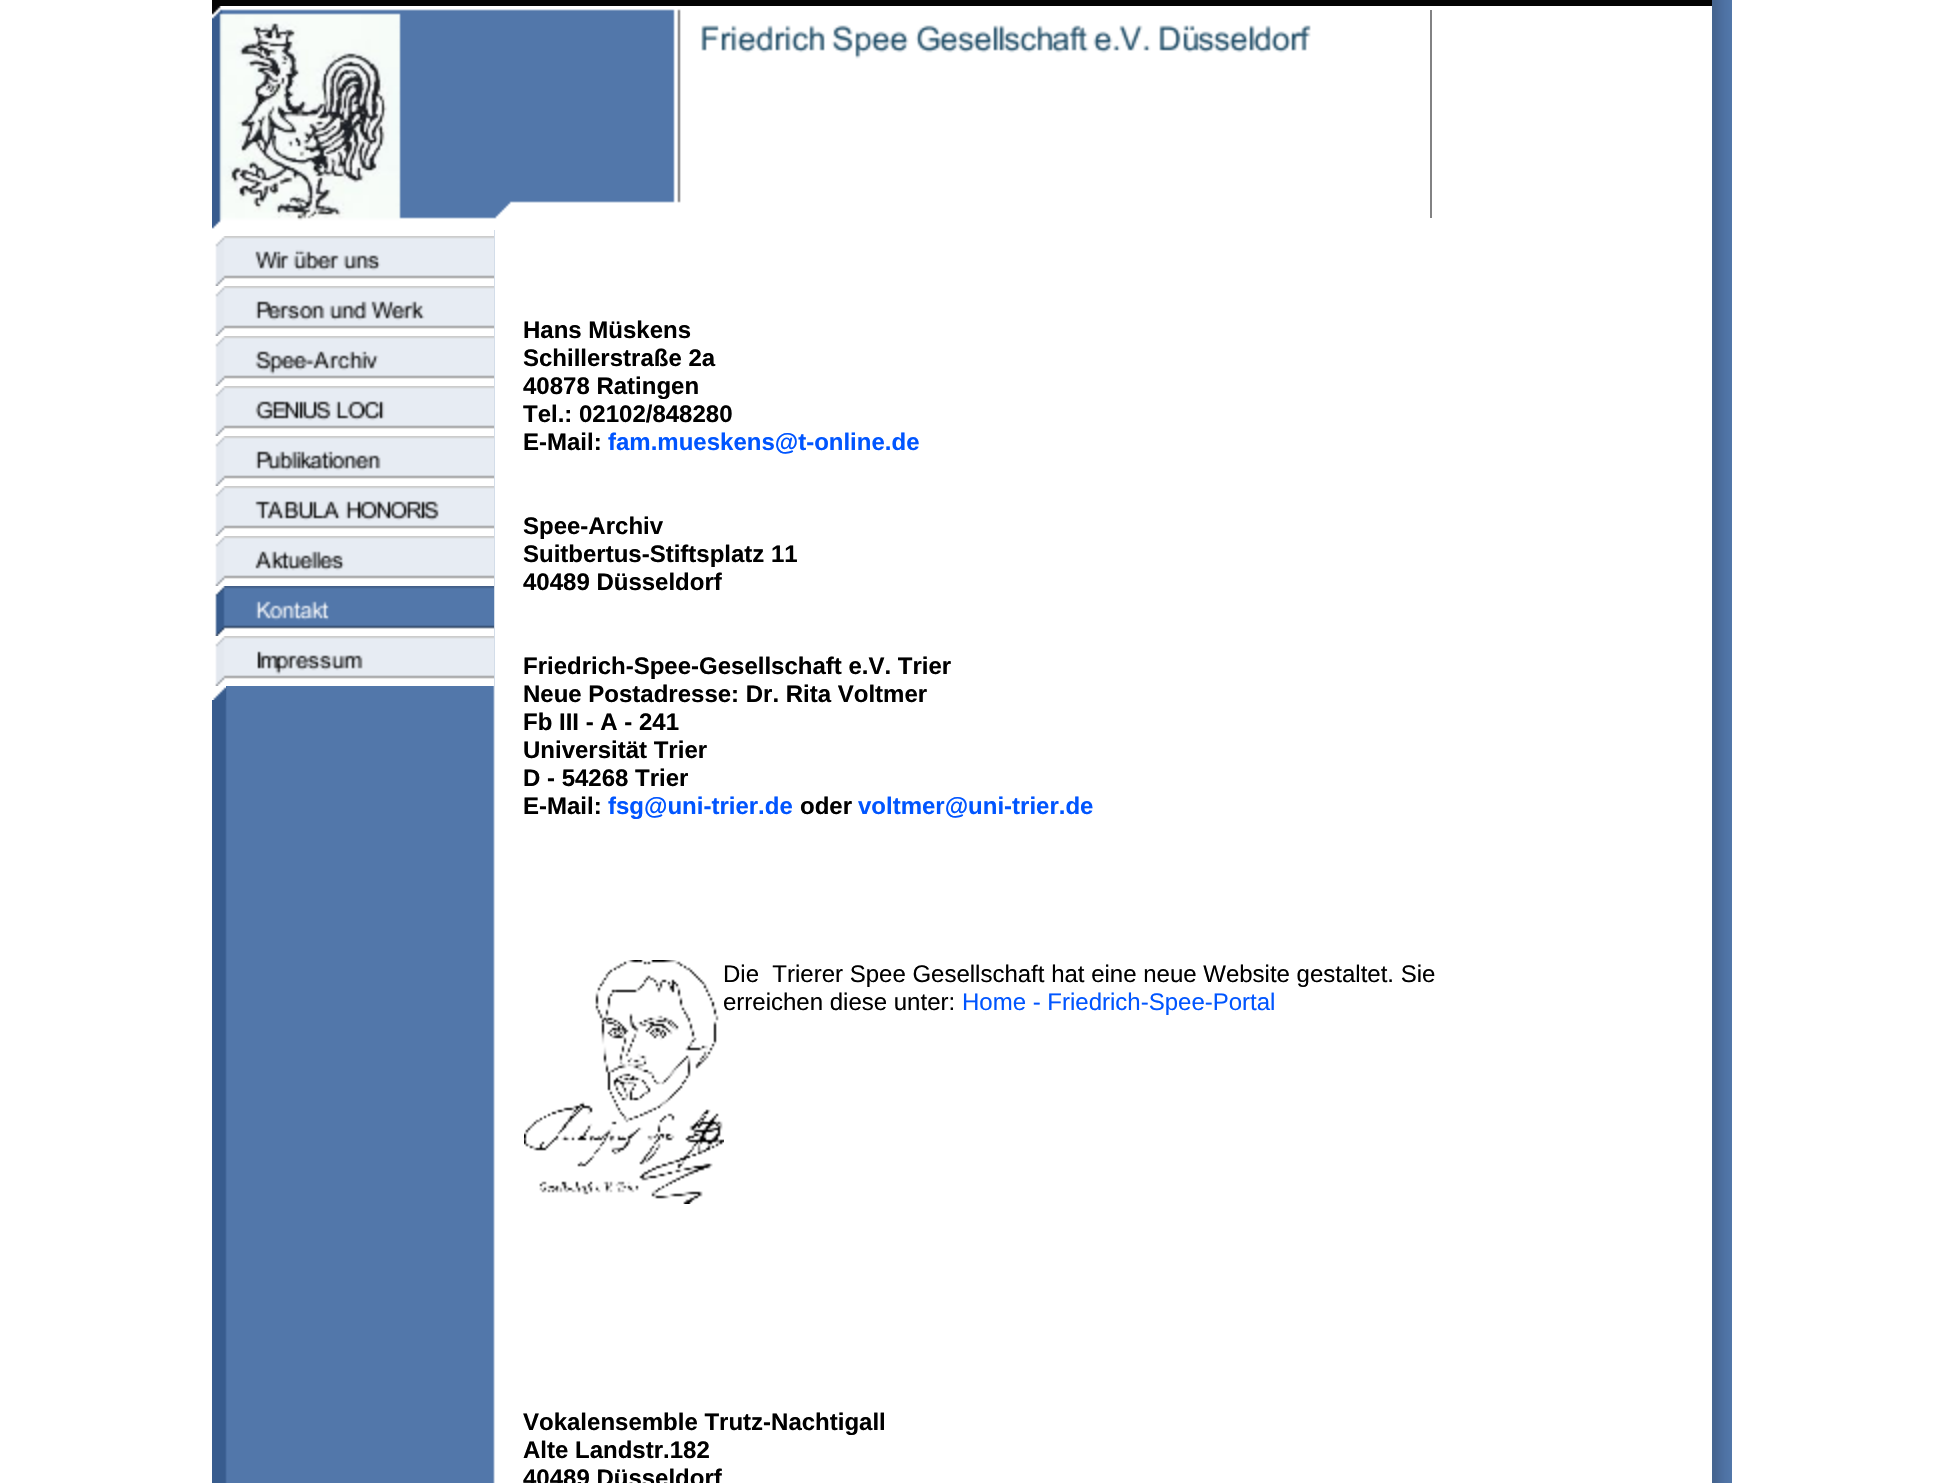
#include "include/core/SkBlurTypes.h"
#include "include/core/SkCanvas.h"
#include "include/core/SkData.h"
#include "include/core/SkFont.h"
#include "include/core/SkFontMgr.h"
#include "include/core/SkImage.h"
#include "include/core/SkMaskFilter.h"
#include "include/core/SkPaint.h"
#include "include/core/SkPathBuilder.h"
#include "include/core/SkTextBlob.h"
#include "include/effects/SkDashPathEffect.h"
#include "include/effects/SkGradientShader.h"
#include "include/utils/SkParsePath.h"

extern sk_sp<SkFontMgr> fontMgr;

void draw(SkCanvas* canvas) {
    SkPaint p;
    p.setAntiAlias(true);
    auto font = [&](const char* family, int weight, float size, bool italic = false) {
        SkFontStyle style(weight, SkFontStyle::kNormal_Width,
            italic ? SkFontStyle::kItalic_Slant : SkFontStyle::kUpright_Slant);
        SkFont result(fontMgr->matchFamilyStyle(family, style), size);
        result.setSubpixel(true);
        return result;
    };
    auto drawPhoto = [&](const char* path, float l, float t, float r, float b) {
        auto image = SkImages::DeferredFromEncodedData(SkData::MakeFromFileName(path));
        canvas->drawImageRect(image, SkRect::MakeLTRB(l, t, r, b), SkSamplingOptions());
    };
    canvas->clear(0xFFFFFFFF);
    drawPhoto("media/1.png", 212, 230, 495, 1483);
    drawPhoto("media/2.png", 1712, 0, 1732, 1483);
    p.setColor(0xFF040404);
    canvas->drawRect(SkRect::MakeLTRB(212, 0, 1712, 6), p);
    drawPhoto("media/3.png", 212, 6, 681, 230);
    drawPhoto("media/4.png", 701, 25, 1311, 59);
    p.setColor(0xFF828283);
    canvas->drawRect(SkRect::MakeLTRB(1430, 10, 1432, 218), p);
    p.setColor(0xFFFFFFFF);
    canvas->drawRect(SkRect::MakeLTRB(212, 230, 494, 236), p);
    drawPhoto("media/5.png", 212, 236, 494, 286);
    drawPhoto("media/6.png", 212, 286, 494, 336);
    drawPhoto("media/7.png", 212, 336, 494, 386);
    drawPhoto("media/8.png", 212, 386, 494, 436);
    drawPhoto("media/9.png", 212, 436, 494, 486);
    drawPhoto("media/10.png", 212, 486, 494, 536);
    drawPhoto("media/11.png", 212, 536, 494, 586);
    drawPhoto("media/12.png", 212, 586, 494, 636);
    drawPhoto("media/13.png", 212, 636, 494, 686);
    drawPhoto("media/14.png", 212, 686, 226, 700);
    auto font1 = font("Liberation Sans", 700, 24);
    p.setColor(0xFF000000);
    {
        const struct { const char* s; float x, y; } items[] = {
            {"Hans Müskens", 523, 338},
            {"Schillerstraße 2a", 523, 366},
            {"40878 Ratingen", 523, 394},
            {"Tel.: 02102/848280", 523, 422},
            {"E-Mail:", 523, 450},
        };
        for (auto [s, x, y] : items) {
            canvas->drawString(s, x, y, font1, p);
        }
    }
    p.setColor(0xFF0055FF);
    canvas->drawString("fam.mueskens@t-online.de", 608, 450, font1, p);
    p.setColor(0xFF000000);
    {
        const struct { const char* s; float x, y; } items[] = {
            {"Spee-Archiv", 523, 534},
            {"Suitbertus-Stiftsplatz 11", 523, 562},
            {"40489 Düsseldorf", 523, 590},
            {"Friedrich-Spee-Gesellschaft e.V. Trier", 523, 674},
            {"Neue Postadresse: Dr. Rita Voltmer", 523, 702},
            {"Fb III - A - 241", 523, 730},
            {"Universität Trier", 523, 758},
            {"D - 54268 Trier", 523, 786},
            {"E-Mail:", 523, 814},
        };
        for (auto [s, x, y] : items) {
            canvas->drawString(s, x, y, font1, p);
        }
    }
    p.setColor(0xFF0055FF);
    canvas->drawString("fsg@uni-trier.de", 608, 814, font1, p);
    p.setColor(0xFF000000);
    canvas->drawString("oder", 800, 814, font1, p);
    p.setColor(0xFF0055FF);
    canvas->drawString("voltmer@uni-trier.de", 858, 814, font1, p);
    drawPhoto("media/15.png", 524, 960, 724, 1204);
    auto font2 = font("Liberation Sans", 400, 24);
    p.setColor(0xFF000000);
    canvas->drawString("Die  Trierer Spee Gesellschaft hat eine neue Website gestaltet. Sie", 723, 982, font2, p);
    canvas->drawString("erreichen diese unter:", 723, 1010, font2, p);
    p.setColor(0xFF0055FF);
    canvas->drawString("Home - Friedrich-Spee-Portal", 962, 1010, font2, p);
    p.setColor(0xFF000000);
    {
        const struct { const char* s; float x, y; } items[] = {
            {"Vokalensemble Trutz-Nachtigall", 523, 1430},
            {"Alte Landstr.182", 523, 1458},
            {"40489 Düsseldorf", 523, 1486},
        };
        for (auto [s, x, y] : items) {
            canvas->drawString(s, x, y, font1, p);
        }
    }
}
